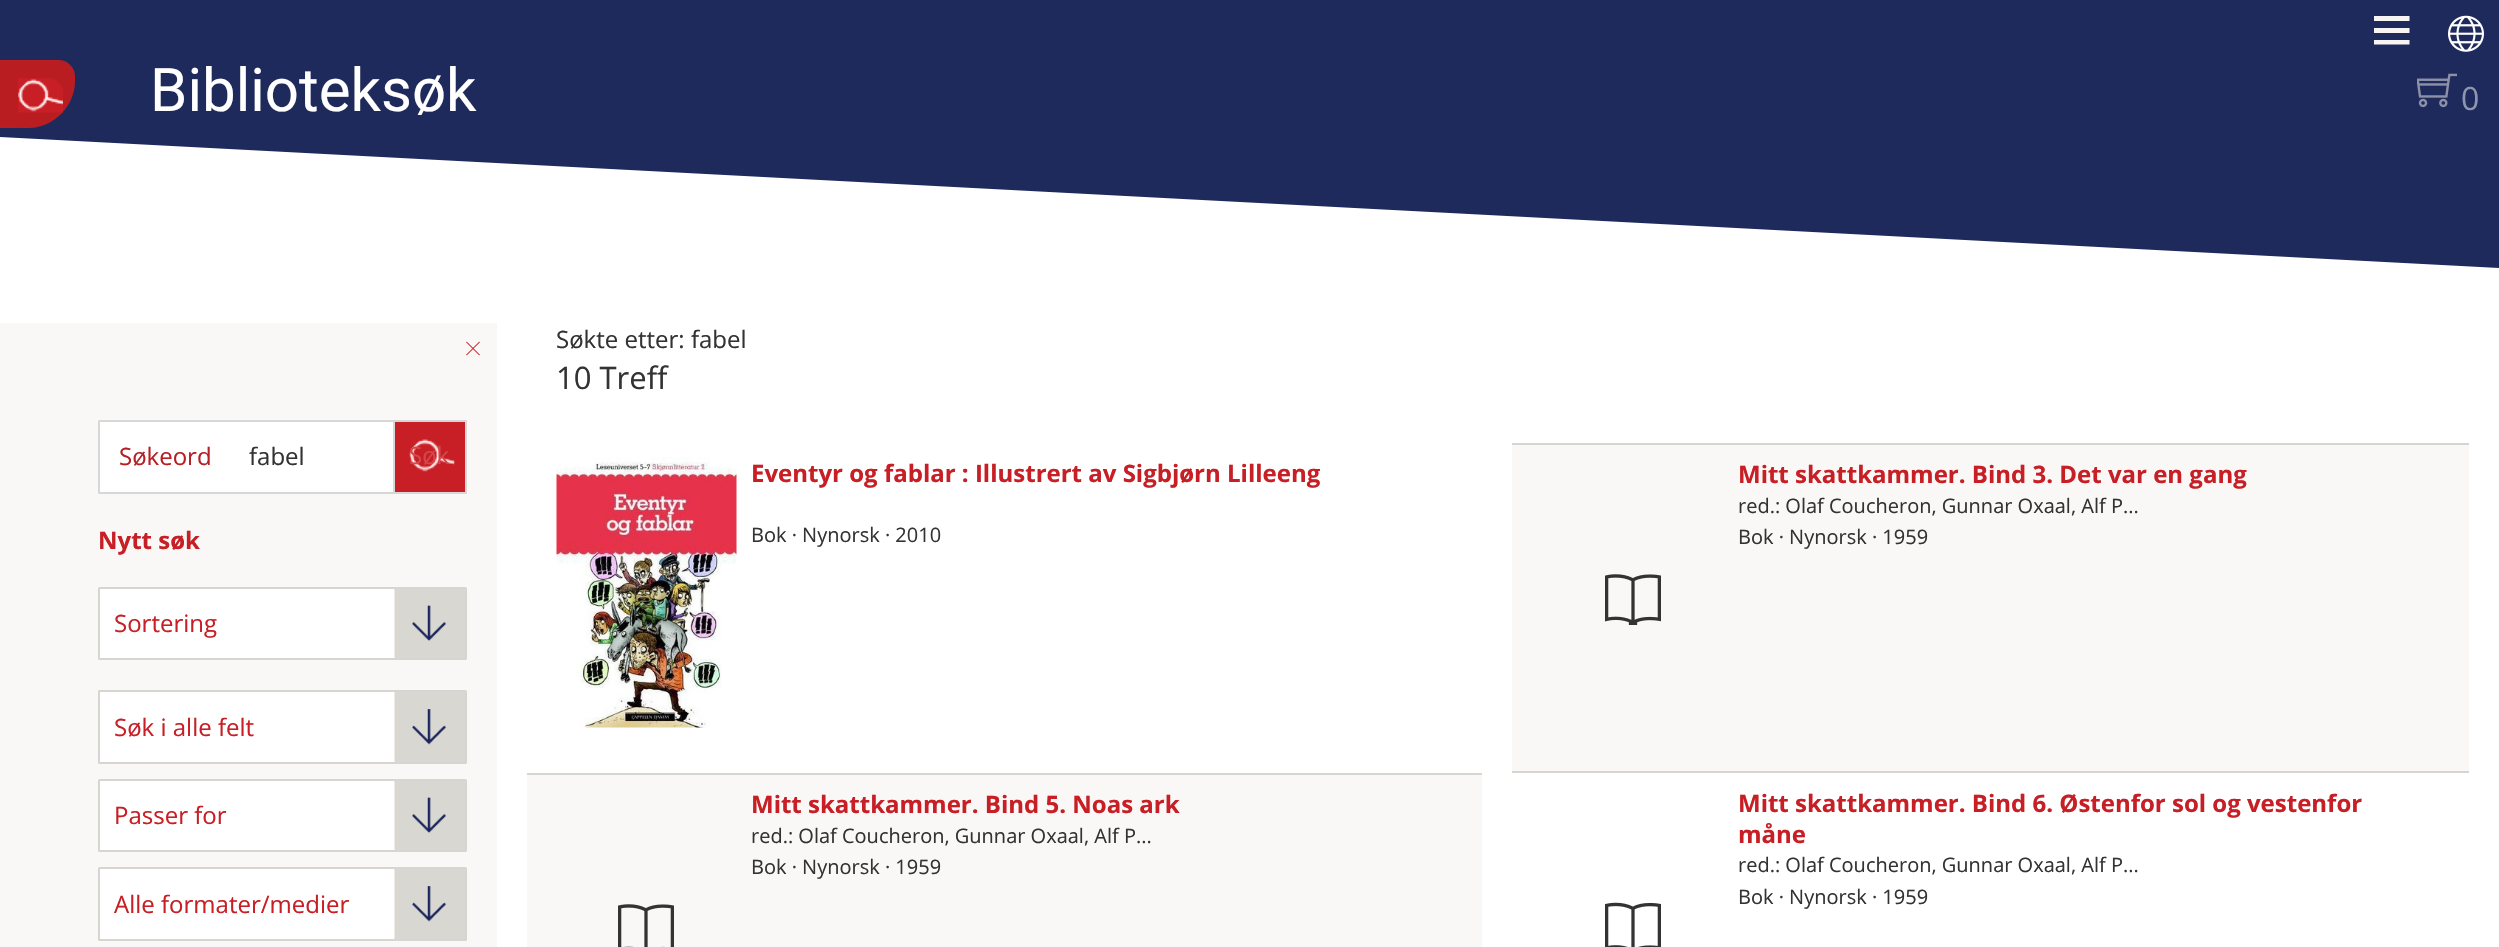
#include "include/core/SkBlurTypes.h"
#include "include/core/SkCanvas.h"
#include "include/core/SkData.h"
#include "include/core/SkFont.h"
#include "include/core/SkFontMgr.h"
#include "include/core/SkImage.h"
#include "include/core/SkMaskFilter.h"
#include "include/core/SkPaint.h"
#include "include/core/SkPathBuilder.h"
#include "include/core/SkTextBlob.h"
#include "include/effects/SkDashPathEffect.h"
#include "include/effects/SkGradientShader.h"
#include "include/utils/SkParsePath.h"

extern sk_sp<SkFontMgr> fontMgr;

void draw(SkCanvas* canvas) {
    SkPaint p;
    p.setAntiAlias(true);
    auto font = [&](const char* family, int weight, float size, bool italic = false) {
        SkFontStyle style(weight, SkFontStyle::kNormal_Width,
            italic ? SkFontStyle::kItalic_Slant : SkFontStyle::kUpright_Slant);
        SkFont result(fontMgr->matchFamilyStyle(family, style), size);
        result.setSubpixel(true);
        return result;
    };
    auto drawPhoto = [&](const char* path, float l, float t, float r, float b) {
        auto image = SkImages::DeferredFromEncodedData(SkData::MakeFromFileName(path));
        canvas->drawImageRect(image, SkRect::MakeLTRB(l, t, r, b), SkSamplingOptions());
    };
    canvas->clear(0xFFFFFFFF);
    p.setColor(0xFF1F2A5C);
    canvas->drawPath(SkPathBuilder().moveTo(0, -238).lineTo(2499, -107).lineTo(2499, 268).lineTo(0, 137).close().detach(), p);
    p.setColor(0xFFB91D22);
    canvas->drawPath(SkPathBuilder().moveTo(0, 60).lineTo(58, 60).cubicTo(67.5f, 60, 75, 67.5f, 75, 77).lineTo(75, 80).cubicTo(75, 106.5f, 53.5f, 128, 27, 128).lineTo(0, 128).close().detach(), p);
    p.setColor(0x66B91D22);
    canvas->drawPath(SkPathBuilder().moveTo(0, 60).lineTo(2, 62).lineTo(58, 62).cubicTo(62, 62, 66, 63, 69, 66).lineTo(70, 65).cubicTo(67, 62, 63, 60, 58, 60).close().detach(), p);
    canvas->drawPath(SkPathBuilder().moveTo(75, 80).cubicTo(75, 74, 75, 69, 70, 65).lineTo(69, 66).cubicTo(78, 73, 74, 90, 70, 98).cubicTo(68, 103, 64, 108, 60, 113).lineTo(61, 114).cubicTo(70, 105, 75, 93, 75, 80).close().detach(), p);
    canvas->drawPath(SkPathBuilder().moveTo(34, 128).lineTo(0, 128).lineTo(2, 126).cubicTo(23, 126, 43, 129, 60, 113).lineTo(61, 114).cubicTo(54, 121, 45, 126, 34, 128).close().detach(), p);
    drawPhoto("media/1.png", 18, 78, 63, 113);
    auto font1 = font("Roboto", 400, 60);
    p.setColor(0xFFFFFFFF);
    canvas->drawString("Biblioteksøk", 150, 111, font1, p);
    p.setColor(0xFFF6F5F3);
    canvas->drawPath(SkPathBuilder().moveTo(2409.5f, 16).lineTo(2409.5f, 21).lineTo(2374, 21).lineTo(2374, 16).close().moveTo(2374, 33).lineTo(2409.5f, 33).lineTo(2409.5f, 28).lineTo(2374, 28).close().moveTo(2374, 44.5f).lineTo(2409.5f, 44.5f).lineTo(2409.5f, 40).lineTo(2374, 40).close().detach(), p);
    drawPhoto("media/2.png", 2448, 15, 2484, 52);
    drawPhoto("media/3.png", 2417, 73, 2457, 108);
    auto font2 = font("Open Sans", 400, 32);
    p.setColor(0xFF8F95AE);
    canvas->drawString("0", 2461, 110, font2, p);
    p.setColor(0xFFF9F8F6);
    canvas->drawRect(SkRect::MakeLTRB(0, 323, 497, 947), p);
    drawPhoto("media/4.png", 466, 341, 480, 356);
    p.setColor(0xFFFFFFFF);
    canvas->drawRoundRect(SkRect::MakeLTRB(99, 421, 466, 493), 0.5f, 0.5f, p);
    p.setStyle(SkPaint::kStroke_Style);
    p.setStrokeWidth(2);
    p.setColor(0xFFD7D7D7);
    canvas->drawRoundRect(SkRect::MakeLTRB(99, 421, 466, 493), 0.5f, 0.5f, p);
    p.setStyle(SkPaint::kFill_Style);
    p.setColor(0xFFC71F25);
    canvas->drawRoundRect(SkRect::MakeLTRB(394, 421, 466, 493), 0.5f, 0.5f, p);
    p.setStyle(SkPaint::kStroke_Style);
    p.setColor(0xFFD7D7D7);
    canvas->drawRoundRect(SkRect::MakeLTRB(394, 421, 466, 493), 0.5f, 0.5f, p);
    auto font3 = font("Open Sans", 400, 24);
    p.setStyle(SkPaint::kFill_Style);
    p.setColor(0xFFB61F24);
    canvas->drawString("Søkeord", 119, 465, font3, p);
    p.setColor(0xFF333333);
    canvas->drawString("fabel", 249, 465, font3, p);
    drawPhoto("media/5.png", 409, 439, 455, 472);
    p.setColor(0xFFD3484D);
    canvas->drawString("Søk", 409, 464, font3, p);
    auto font4 = font("Open Sans", 700, 24);
    p.setColor(0xFFC71F25);
    canvas->drawString("Nytt søk", 98, 549, font4, p);
    p.setColor(0xFFFFFFFF);
    canvas->drawRoundRect(SkRect::MakeLTRB(98, 587, 467, 660), 1.5f, 1.5f, p);
    drawPhoto("media/6.png", 394, 589, 465, 658);
    p.setStyle(SkPaint::kStroke_Style);
    p.setColor(0xFFD7D5D0);
    canvas->drawRoundRect(SkRect::MakeLTRB(99, 588, 466, 659), 0.5f, 0.5f, p);
    p.setStyle(SkPaint::kFill_Style);
    p.setColor(0xFFC71F25);
    canvas->drawString("Sortering", 114, 632, font3, p);
    p.setColor(0xFFFFFFFF);
    canvas->drawRoundRect(SkRect::MakeLTRB(98, 690, 467, 764), 1.5f, 1.5f, p);
    drawPhoto("media/7.png", 394, 692, 465, 762);
    p.setStyle(SkPaint::kStroke_Style);
    p.setColor(0xFFD7D5D0);
    canvas->drawRoundRect(SkRect::MakeLTRB(99, 691, 466, 763), 0.5f, 0.5f, p);
    p.setStyle(SkPaint::kFill_Style);
    p.setColor(0xFFC71F25);
    canvas->drawString("Søk i alle felt", 114, 736, font3, p);
    p.setColor(0xFFFFFFFF);
    canvas->drawRoundRect(SkRect::MakeLTRB(98, 779, 467, 852), 1.5f, 1.5f, p);
    drawPhoto("media/6.png", 394, 781, 465, 850);
    p.setStyle(SkPaint::kStroke_Style);
    p.setColor(0xFFD7D5D0);
    canvas->drawRoundRect(SkRect::MakeLTRB(99, 780, 466, 851), 0.5f, 0.5f, p);
    p.setStyle(SkPaint::kFill_Style);
    p.setColor(0xFFC71F25);
    canvas->drawString("Passer for", 114, 824, font3, p);
    p.setColor(0xFFFFFFFF);
    canvas->drawRoundRect(SkRect::MakeLTRB(98, 867, 467, 941), 1.5f, 1.5f, p);
    drawPhoto("media/7.png", 394, 869, 465, 939);
    p.setStyle(SkPaint::kStroke_Style);
    p.setColor(0xFFD7D5D0);
    canvas->drawRoundRect(SkRect::MakeLTRB(99, 868, 466, 940), 0.5f, 0.5f, p);
    p.setStyle(SkPaint::kFill_Style);
    p.setColor(0xFFC71F25);
    canvas->drawString("Alle formater/medier", 114, 913, font3, p);
    p.setColor(0xFF333333);
    canvas->drawString("Søkte etter: fabel", 556, 348, font3, p);
    auto font5 = font("Open Sans", 400, 31);
    canvas->drawString("10 Treff", 556, 389, font5, p);
    drawPhoto("media/8.png", 556, 457, 737, 728);
    p.setColor(0xFFC71F25);
    canvas->drawString("Eventyr og fablar : Illustrert av Sigbjørn Lilleeng", 751, 482, font4, p);
    auto font6 = font("Open Sans", 400, 20);
    p.setColor(0xFF333333);
    canvas->drawString("Bok · Nynorsk · 2010", 751, 542, font6, p);
    {
        const struct { float l, t, r, b; SkColor color; } items[] = {
            {1512, 445, 2469, 771, 0xFFF9F8F6},
            {1512, 443, 2469, 445, 0xFFD7D5D0},
            {1512, 771, 2469, 773, 0xFFD7D5D0},
        };
        for (auto [l, t, r, b, color] : items) {
            p.setColor(color);
            canvas->drawRect(SkRect::MakeLTRB(l, t, r, b), p);
        }
    }
    p.setColor(0xFFC71F25);
    canvas->drawString("Mitt skattkammer. Bind 3. Det var en gang", 1738, 483, font4, p);
    p.setColor(0xFF333333);
    canvas->drawString("red.: Olaf Coucheron, Gunnar Oxaal, Alf P...", 1738, 513, font6, p);
    canvas->drawString("Bok · Nynorsk · 1959", 1738, 544, font6, p);
    drawPhoto("media/9.png", 1605, 574, 1661, 625);
    p.setColor(0xFFF9F8F6);
    canvas->drawRect(SkRect::MakeLTRB(527, 775, 1482, 947), p);
    p.setColor(0xFFD7D5D0);
    canvas->drawRect(SkRect::MakeLTRB(527, 773, 1482, 775), p);
    p.setColor(0xFFC71F25);
    canvas->drawString("Mitt skattkammer. Bind 5. Noas ark", 751, 813, font4, p);
    p.setColor(0xFF333333);
    canvas->drawString("red.: Olaf Coucheron, Gunnar Oxaal, Alf P...", 751, 843, font6, p);
    canvas->drawString("Bok · Nynorsk · 1959", 751, 874, font6, p);
    drawPhoto("media/10.png", 618, 904, 674, 947);
    p.setColor(0xFFC71F25);
    canvas->drawString("Mitt skattkammer. Bind 6. Østenfor sol og vestenfor", 1738, 812, font4, p);
    canvas->drawString("måne", 1738, 843, font4, p);
    p.setColor(0xFF333333);
    canvas->drawString("red.: Olaf Coucheron, Gunnar Oxaal, Alf P...", 1738, 872, font6, p);
    canvas->drawString("Bok · Nynorsk · 1959", 1738, 904, font6, p);
    drawPhoto("media/11.png", 1605, 902, 1661, 947);
}
